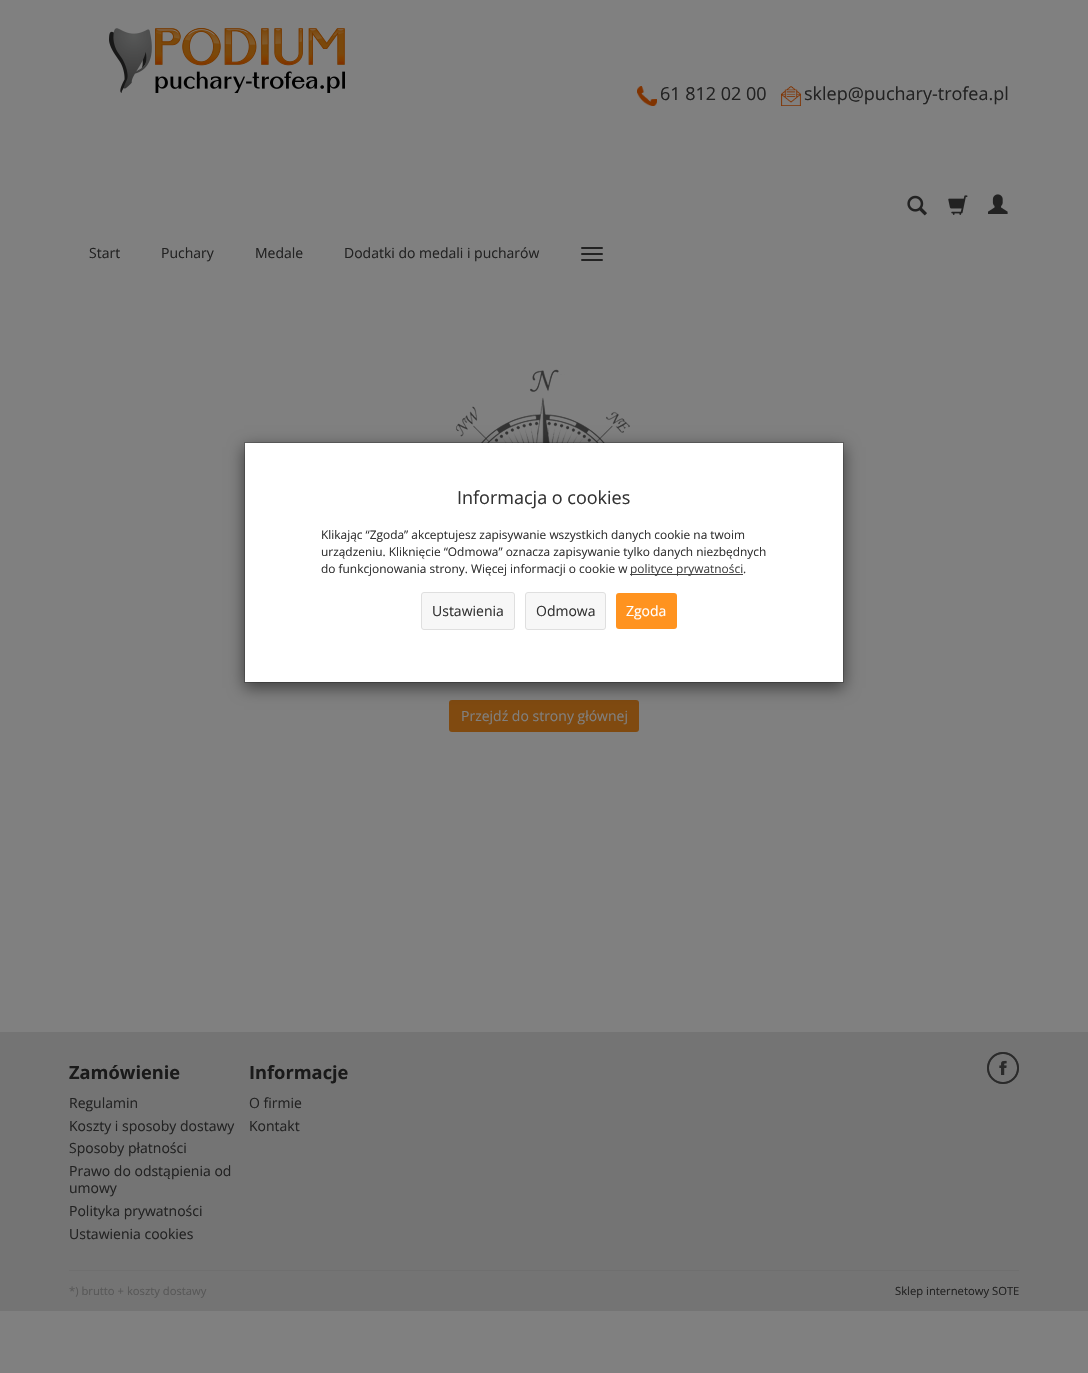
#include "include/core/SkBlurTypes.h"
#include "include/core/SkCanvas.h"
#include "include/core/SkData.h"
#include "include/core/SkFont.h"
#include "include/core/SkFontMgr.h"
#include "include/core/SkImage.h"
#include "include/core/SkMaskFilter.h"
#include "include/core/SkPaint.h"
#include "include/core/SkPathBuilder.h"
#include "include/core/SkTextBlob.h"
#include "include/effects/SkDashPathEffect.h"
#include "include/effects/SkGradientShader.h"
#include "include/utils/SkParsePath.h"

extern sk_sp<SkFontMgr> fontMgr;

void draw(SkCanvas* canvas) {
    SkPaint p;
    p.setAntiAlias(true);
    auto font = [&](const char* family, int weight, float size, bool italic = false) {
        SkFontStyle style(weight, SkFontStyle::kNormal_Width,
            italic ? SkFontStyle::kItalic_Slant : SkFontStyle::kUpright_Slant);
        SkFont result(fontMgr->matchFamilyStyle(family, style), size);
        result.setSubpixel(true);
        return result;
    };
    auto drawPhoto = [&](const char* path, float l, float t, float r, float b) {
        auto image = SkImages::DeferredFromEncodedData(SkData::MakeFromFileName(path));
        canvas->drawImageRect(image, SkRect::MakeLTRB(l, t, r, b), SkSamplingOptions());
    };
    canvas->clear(0xFF808080);
    drawPhoto("media/1.png", 109, 28, 345, 93);
    drawPhoto("media/2.png", 637, 86, 657, 106);
    auto font1 = font("Open Sans", 400, 18);
    p.setColor(0xFF222222);
    canvas->drawString("61 812 02 00", 660, 100, font1, p);
    drawPhoto("media/3.png", 781, 86, 801, 106);
    canvas->drawString("sklep@puchary-trofea.pl", 804, 100, font1, p);
    drawPhoto("media/4.png", 907, 195, 927, 216);
    drawPhoto("media/5.png", 948, 195, 968, 215);
    drawPhoto("media/6.png", 988, 194, 1008, 214);
    auto font2 = font("Open Sans", 400, 14);
    {
        const struct { const char* s; float x, y; } items[] = {
            {"Start", 89, 258},
            {"Puchary", 161, 258},
            {"Medale", 255, 258},
            {"Dodatki do medali i pucharów", 344, 258},
        };
        for (auto [s, x, y] : items) {
            canvas->drawString(s, x, y, font2, p);
        }
    }
    canvas->drawRoundRect(SkRect::MakeLTRB(581, 247, 603, 249), 1, 1, p);
    canvas->drawRoundRect(SkRect::MakeLTRB(581, 253, 603, 255), 1, 1, p);
    canvas->drawRoundRect(SkRect::MakeLTRB(581, 259, 603, 261), 1, 1, p);
    drawPhoto("media/7.png", 432, 369, 631, 443);
    p.setColor(0xFF804A10);
    canvas->drawRoundRect(SkRect::MakeLTRB(449, 700, 639, 732), 3, 3, p);
    p.setColor(0x80000000);
    p.setMaskFilter(SkMaskFilter::MakeBlur(kNormal_SkBlurStyle, 7.5f));
    canvas->drawRect(SkRect::MakeLTRB(244, 447, 844, 688), p);
    p.setMaskFilter(nullptr);
    p.setColor(0xFFFFFFFF);
    canvas->drawRect(SkRect::MakeLTRB(245, 443, 843, 682), p);
    p.setStyle(SkPaint::kStroke_Style);
    p.setStrokeWidth(1);
    p.setColor(0x33000000);
    canvas->drawRect(SkRect::MakeLTRB(244.5f, 442.5f, 843.5f, 682.5f), p);
    p.setStyle(SkPaint::kFill_Style);
    p.setColor(0xFF333333);
    canvas->drawString("Informacja o cookies", 457, 504, font1, p);
    auto font3 = font("Open Sans", 400, 11.9f);
    {
        const struct { const char* s; float x, y; } items[] = {
            {"Klikając “Zgoda” akceptujesz zapisywanie wszystkich danych cookie na twoim", 321, 539},
            {"urządzeniu. Kliknięcie “Odmowa” oznacza zapisywanie tylko danych niezbędnych", 321, 556},
            {"do funkcjonowania strony. Więcej informacji o cookie w", 321, 573},
        };
        for (auto [s, x, y] : items) {
            canvas->drawString(s, x, y, font3, p);
        }
    }
    p.setColor(0xFF444444);
    canvas->drawRect(SkRect::MakeLTRB(630, 574, 743, 575), p);
    canvas->drawString("polityce prywatności", 630, 573, font3, p);
    p.setColor(0xFF333333);
    canvas->drawString(".", 743, 573, font3, p);
    p.setColor(0xFFF7F7F7);
    canvas->drawRoundRect(SkRect::MakeLTRB(421.5f, 592.5f, 514.5f, 629.5f), 2.5f, 2.5f, p);
    p.setStyle(SkPaint::kStroke_Style);
    p.setColor(0xFFDFDFDF);
    canvas->drawRoundRect(SkRect::MakeLTRB(421.5f, 592.5f, 514.5f, 629.5f), 2.5f, 2.5f, p);
    p.setStyle(SkPaint::kFill_Style);
    p.setColor(0xFF333333);
    canvas->drawString("Ustawienia", 432, 616, font2, p);
    p.setColor(0xFFF7F7F7);
    canvas->drawRoundRect(SkRect::MakeLTRB(525.5f, 592.5f, 605.5f, 629.5f), 2.5f, 2.5f, p);
    p.setStyle(SkPaint::kStroke_Style);
    p.setColor(0xFFDFDFDF);
    canvas->drawRoundRect(SkRect::MakeLTRB(525.5f, 592.5f, 605.5f, 629.5f), 2.5f, 2.5f, p);
    p.setStyle(SkPaint::kFill_Style);
    p.setColor(0xFF333333);
    canvas->drawString("Odmowa", 536, 616, font2, p);
    p.setColor(0xFFFF931F);
    canvas->drawRoundRect(SkRect::MakeLTRB(616, 593, 677, 629), 3, 3, p);
    p.setColor(0xFFFFFFFF);
    canvas->drawString("Zgoda", 626, 616, font2, p);
    p.setColor(0xFF808080);
    canvas->drawString("Przejdź do strony głównej", 461, 721, font2, p);
    p.setColor(0xFF747474);
    canvas->drawRect(SkRect::MakeLTRB(0, 1032, 1088, 1311), p);
    auto font4 = font("Open Sans", 700, 18.25f);
    p.setColor(0xFF1A1A1A);
    canvas->drawString("Zamówienie", 69, 1079, font4, p);
    p.setColor(0xFF222222);
    {
        const struct { const char* s; float x, y; } items[] = {
            {"Regulamin", 69, 1108},
            {"Koszty i sposoby dostawy", 69, 1131},
            {"Sposoby płatności", 69, 1153},
            {"Prawo do odstąpienia od", 69, 1176},
            {"umowy", 69, 1193},
            {"Polityka prywatności", 69, 1216},
            {"Ustawienia cookies", 69, 1239},
        };
        for (auto [s, x, y] : items) {
            canvas->drawString(s, x, y, font2, p);
        }
    }
    p.setColor(0xFF1A1A1A);
    canvas->drawString("Informacje", 249, 1079, font4, p);
    p.setColor(0xFF222222);
    canvas->drawString("O firmie", 249, 1108, font2, p);
    canvas->drawString("Kontakt", 249, 1131, font2, p);
    drawPhoto("media/8.png", 987, 1052, 1019, 1084);
    p.setColor(0xFF6F6F6F);
    canvas->drawRect(SkRect::MakeLTRB(69, 1270, 1019, 1271), p);
    auto font5 = font("Open Sans", 400, 11.25f);
    p.setColor(0xFF575757);
    canvas->drawString("*) brutto + koszty dostawy", 69, 1295, font5, p);
    p.setColor(0xFF222222);
    canvas->drawString("Sklep internetowy SOTE", 895, 1295, font5, p);
}
